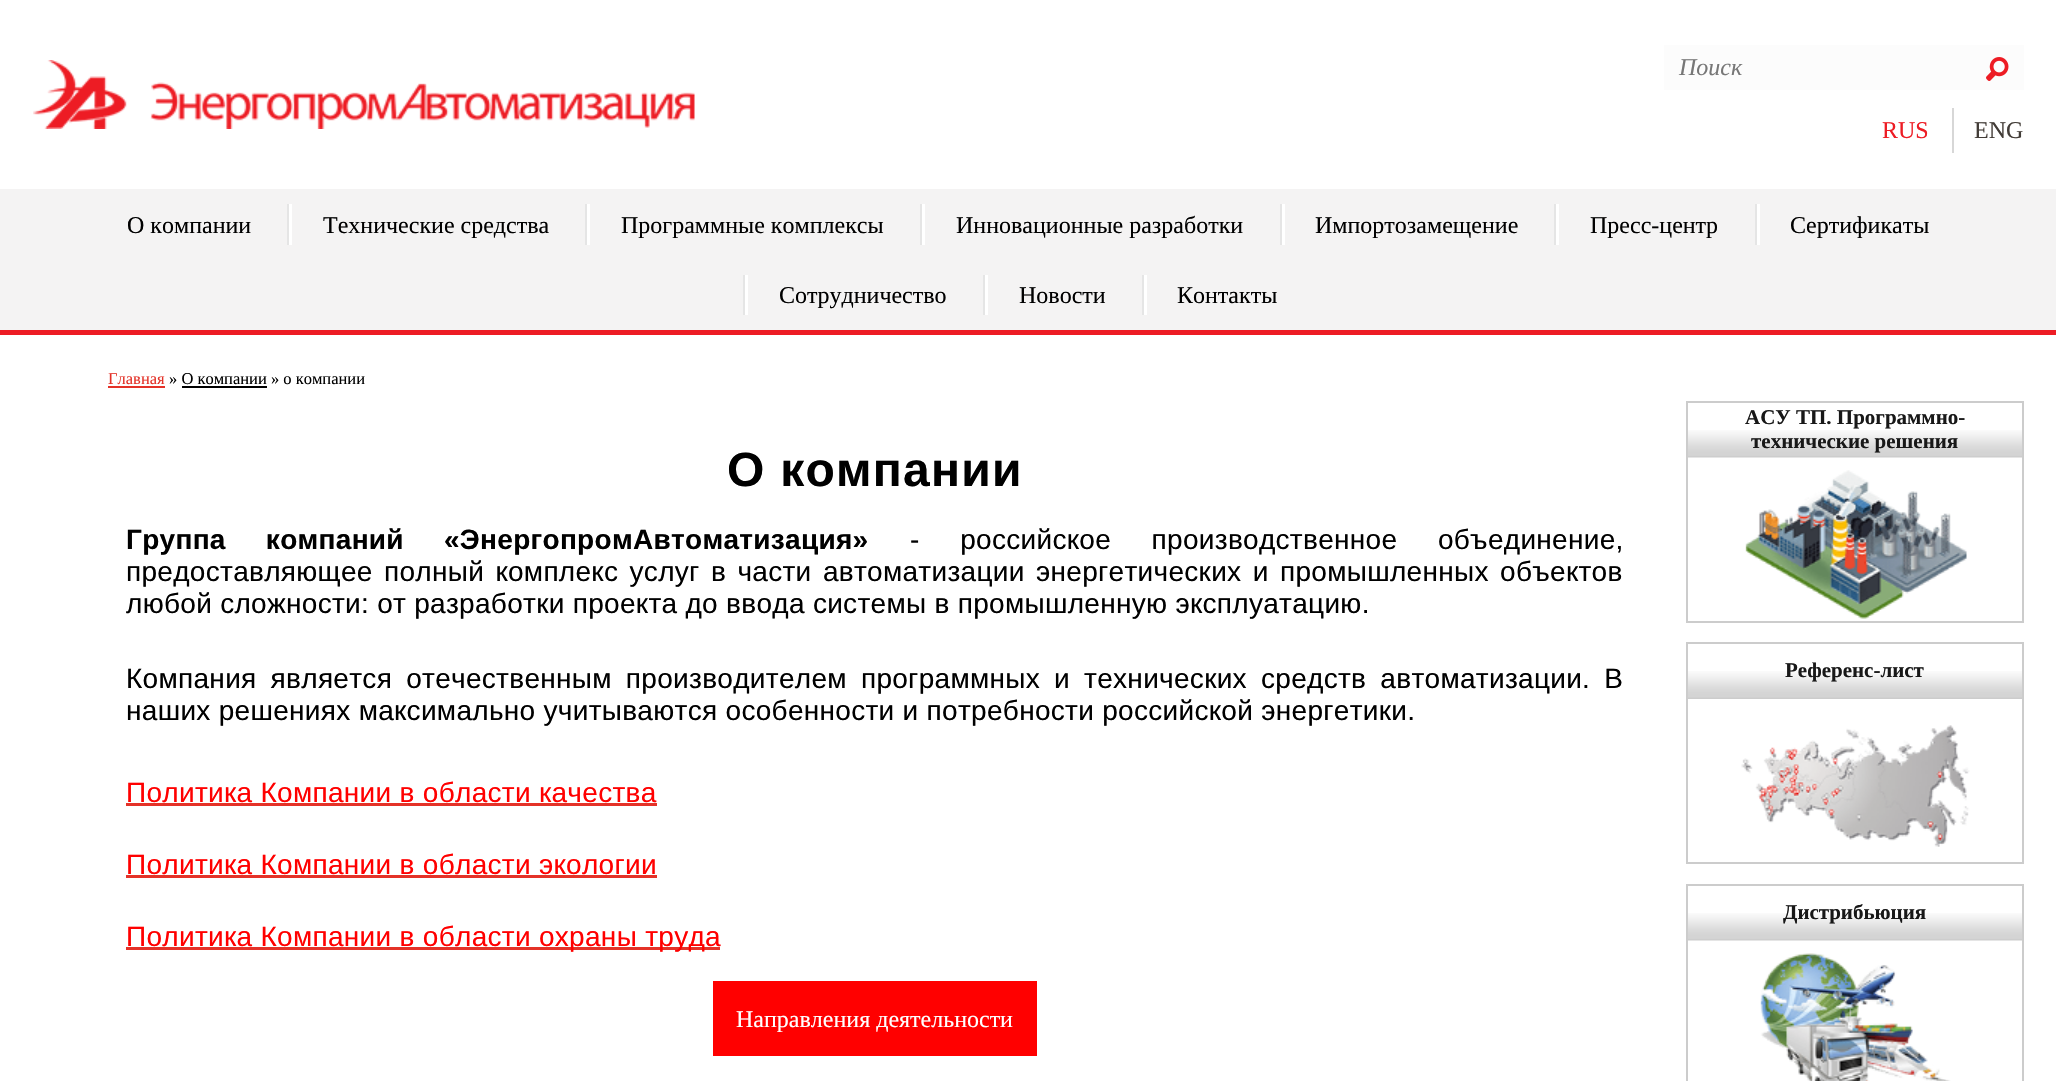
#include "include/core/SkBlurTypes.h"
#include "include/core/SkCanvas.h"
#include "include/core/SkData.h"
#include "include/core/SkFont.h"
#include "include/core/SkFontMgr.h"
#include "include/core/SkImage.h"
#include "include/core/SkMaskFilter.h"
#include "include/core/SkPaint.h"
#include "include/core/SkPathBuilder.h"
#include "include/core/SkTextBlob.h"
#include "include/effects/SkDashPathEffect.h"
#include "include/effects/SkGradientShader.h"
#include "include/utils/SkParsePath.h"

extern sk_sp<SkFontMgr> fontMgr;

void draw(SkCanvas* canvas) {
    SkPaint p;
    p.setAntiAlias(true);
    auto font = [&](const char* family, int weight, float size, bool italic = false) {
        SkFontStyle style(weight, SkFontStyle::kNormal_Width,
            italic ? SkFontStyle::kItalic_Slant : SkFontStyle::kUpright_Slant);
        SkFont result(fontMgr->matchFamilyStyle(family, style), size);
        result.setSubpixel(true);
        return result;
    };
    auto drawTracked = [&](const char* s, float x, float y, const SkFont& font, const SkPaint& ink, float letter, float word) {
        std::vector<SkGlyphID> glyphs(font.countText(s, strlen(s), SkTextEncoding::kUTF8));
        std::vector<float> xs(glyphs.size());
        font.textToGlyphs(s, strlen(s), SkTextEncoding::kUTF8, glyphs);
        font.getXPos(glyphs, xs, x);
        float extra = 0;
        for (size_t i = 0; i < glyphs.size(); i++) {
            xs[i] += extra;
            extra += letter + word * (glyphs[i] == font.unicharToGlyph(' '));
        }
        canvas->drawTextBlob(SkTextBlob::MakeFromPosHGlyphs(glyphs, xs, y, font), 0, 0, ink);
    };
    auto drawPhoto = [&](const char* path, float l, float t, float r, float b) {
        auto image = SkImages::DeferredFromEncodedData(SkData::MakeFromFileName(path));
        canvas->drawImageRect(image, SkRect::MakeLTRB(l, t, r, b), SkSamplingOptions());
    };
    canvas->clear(0xFFFFFFFF);
    drawPhoto("media/1.png", 33, 60, 695, 129);
    p.setColor(0xFFFCFCFC);
    canvas->drawRect(SkRect::MakeLTRB(1664, 45, 2024, 90), p);
    auto font1 = font("Liberation Serif", 400, 24, true);
    p.setColor(0xFF777777);
    canvas->drawString("Поиск", 1679, 75, font1, p);
    drawPhoto("media/2.png", 1986, 57, 2009, 81);
    auto font2 = font("Liberation Serif", 400, 24);
    p.setColor(0xFFED1C24);
    canvas->drawString("RUS", 1882, 138, font2, p);
    p.setColor(0xFFD7D7D7);
    canvas->drawRect(SkRect::MakeLTRB(1952, 108, 1954, 153), p);
    p.setColor(0xFF423C37);
    canvas->drawString("ENG", 1974, 138, font2, p);
    p.setColor(0xFFF4F3F3);
    canvas->drawRect(SkRect::MakeLTRB(0, 189, 2056, 330), p);
    p.setColor(0xFFED1C24);
    canvas->drawRect(SkRect::MakeLTRB(0, 330, 2056, 335), p);
    p.setColor(0xFF000000);
    canvas->drawString("О компании", 127, 233, font2, p);
    p.setColor(0xFFFFFFFF);
    canvas->drawRect(SkRect::MakeLTRB(289, 204, 292, 245), p);
    p.setColor(0xFFE5E5E5);
    canvas->drawRect(SkRect::MakeLTRB(287, 204, 289, 245), p);
    p.setColor(0xFF000000);
    canvas->drawString("Технические средства", 323, 233, font2, p);
    p.setColor(0xFFFFFFFF);
    canvas->drawRect(SkRect::MakeLTRB(587, 204, 590, 245), p);
    p.setColor(0xFFE5E5E5);
    canvas->drawRect(SkRect::MakeLTRB(585, 204, 587, 245), p);
    p.setColor(0xFF000000);
    canvas->drawString("Программные комплексы", 621, 233, font2, p);
    p.setColor(0xFFFFFFFF);
    canvas->drawRect(SkRect::MakeLTRB(922, 204, 925, 245), p);
    p.setColor(0xFFE5E5E5);
    canvas->drawRect(SkRect::MakeLTRB(920, 204, 922, 245), p);
    p.setColor(0xFF000000);
    canvas->drawString("Инновационные разработки", 956, 233, font2, p);
    p.setColor(0xFFFFFFFF);
    canvas->drawRect(SkRect::MakeLTRB(1282, 204, 1285, 245), p);
    p.setColor(0xFFE5E5E5);
    canvas->drawRect(SkRect::MakeLTRB(1280, 204, 1282, 245), p);
    p.setColor(0xFF000000);
    canvas->drawString("Импортозамещение", 1315, 233, font2, p);
    p.setColor(0xFFFFFFFF);
    canvas->drawRect(SkRect::MakeLTRB(1556, 204, 1559, 245), p);
    p.setColor(0xFFE5E5E5);
    canvas->drawRect(SkRect::MakeLTRB(1554, 204, 1556, 245), p);
    p.setColor(0xFF000000);
    canvas->drawString("Пресс-центр", 1590, 233, font2, p);
    p.setColor(0xFFFFFFFF);
    canvas->drawRect(SkRect::MakeLTRB(1757, 204, 1760, 245), p);
    p.setColor(0xFFE5E5E5);
    canvas->drawRect(SkRect::MakeLTRB(1755, 204, 1757, 245), p);
    p.setColor(0xFF000000);
    canvas->drawString("Сертификаты", 1790, 233, font2, p);
    p.setColor(0xFFFFFFFF);
    canvas->drawRect(SkRect::MakeLTRB(745, 275, 748, 315), p);
    p.setColor(0xFFE5E5E5);
    canvas->drawRect(SkRect::MakeLTRB(743, 275, 745, 315), p);
    p.setColor(0xFF000000);
    canvas->drawString("Сотрудничество", 779, 303, font2, p);
    p.setColor(0xFFFFFFFF);
    canvas->drawRect(SkRect::MakeLTRB(985, 275, 988, 315), p);
    p.setColor(0xFFE5E5E5);
    canvas->drawRect(SkRect::MakeLTRB(983, 275, 985, 315), p);
    p.setColor(0xFF000000);
    canvas->drawString("Новости", 1019, 303, font2, p);
    p.setColor(0xFFFFFFFF);
    canvas->drawRect(SkRect::MakeLTRB(1144, 275, 1147, 315), p);
    p.setColor(0xFFE5E5E5);
    canvas->drawRect(SkRect::MakeLTRB(1142, 275, 1144, 315), p);
    p.setColor(0xFF000000);
    canvas->drawString("Контакты", 1177, 303, font2, p);
    auto font3 = font("Liberation Serif", 400, 16.5f);
    p.setColor(0xFFE43228);
    canvas->drawString("Главная", 108, 384, font3, p);
    canvas->drawRect(SkRect::MakeLTRB(108, 386, 165, 388), p);
    p.setColor(0xFF000000);
    canvas->drawString("» О компании » о компании", 169, 384, font3, p);
    canvas->drawRect(SkRect::MakeLTRB(182, 386, 267, 388), p);
    auto font4 = font("Liberation Sans", 700, 48);
    drawTracked("О компании", 727, 486, font4, p, 1.25f, 0);
    auto font5 = font("Liberation Sans", 700, 28);
    drawTracked("Группа компаний «ЭнергопромАвтоматизация»", 126, 549, font5, p, 0.3f, 32);
    auto font6 = font("Liberation Sans", 400, 28);
    drawTracked("- российское производственное объединение,", 910, 549, font6, p, 0.3f, 32.5f);
    drawTracked("предоставляющее полный комплекс услуг в части автоматизации энергетических и промышленных объектов", 126, 581, font6, p, 0.3f, 3.25f);
    drawTracked("любой сложности: от разработки проекта до ввода системы в промышленную эксплуатацию.", 126, 613, font6, p, 0.3f, 0);
    drawTracked("Компания является отечественным производителем программных и технических средств автоматизации. В", 126, 688, font6, p, 0.3f, 6);
    drawTracked("наших решениях максимально учитываются особенности и потребности российской энергетики.", 126, 720, font6, p, 0.3f, 0);
    p.setColor(0xFFFF0000);
    drawTracked("Политика Компании в области качества", 126, 802, font6, p, 0.3f, 0);
    p.setColor(0xFFE43228);
    canvas->drawRect(SkRect::MakeLTRB(126, 803, 657, 806), p);
    p.setColor(0xFFFF0000);
    drawTracked("Политика Компании в области экологии", 126, 874, font6, p, 0.3f, 0);
    p.setColor(0xFFE43228);
    canvas->drawRect(SkRect::MakeLTRB(126, 875, 657, 878), p);
    canvas->drawRect(SkRect::MakeLTRB(126, 947, 720, 950), p);
    p.setColor(0xFFFF0000);
    drawTracked("Политика Компании в области охраны труда", 126, 946, font6, p, 0.3f, 0);
    canvas->drawRect(SkRect::MakeLTRB(713, 981, 1037, 1056), p);
    p.setColor(0xFFFFFFFF);
    canvas->drawString("Направления деятельности", 736, 1027, font2, p);
    drawPhoto("media/3.png", 1688, 430, 2022, 458);
    p.setStyle(SkPaint::kStroke_Style);
    p.setStrokeWidth(2);
    p.setColor(0xFFCCCCCC);
    canvas->drawRect(SkRect::MakeLTRB(1687, 402, 2023, 622), p);
    auto font7 = font("Liberation Serif", 700, 21);
    p.setStyle(SkPaint::kFill_Style);
    p.setColor(0xFF181818);
    canvas->drawString("АСУ ТП. Программно-", 1745, 424, font7, p);
    canvas->drawString("технические решения", 1751, 448, font7, p);
    drawPhoto("media/4.png", 1745, 470, 1967, 619);
    drawPhoto("media/5.png", 1688, 671, 2022, 699);
    p.setStyle(SkPaint::kStroke_Style);
    p.setColor(0xFFCCCCCC);
    canvas->drawRect(SkRect::MakeLTRB(1687, 643, 2023, 863), p);
    p.setStyle(SkPaint::kFill_Style);
    p.setColor(0xFF181818);
    canvas->drawString("Референс-лист", 1785, 677, font7, p);
    drawPhoto("media/6.png", 1741, 725, 1970, 847);
    drawPhoto("media/3.png", 1688, 913, 2022, 941);
    p.setStyle(SkPaint::kStroke_Style);
    p.setColor(0xFFCCCCCC);
    canvas->drawRect(SkRect::MakeLTRB(1687, 885, 2023, 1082), p);
    p.setStyle(SkPaint::kFill_Style);
    p.setColor(0xFF181818);
    canvas->drawString("Дистрибьюция", 1783, 919, font7, p);
    drawPhoto("media/7.png", 1760, 953, 1951, 1081);
}
